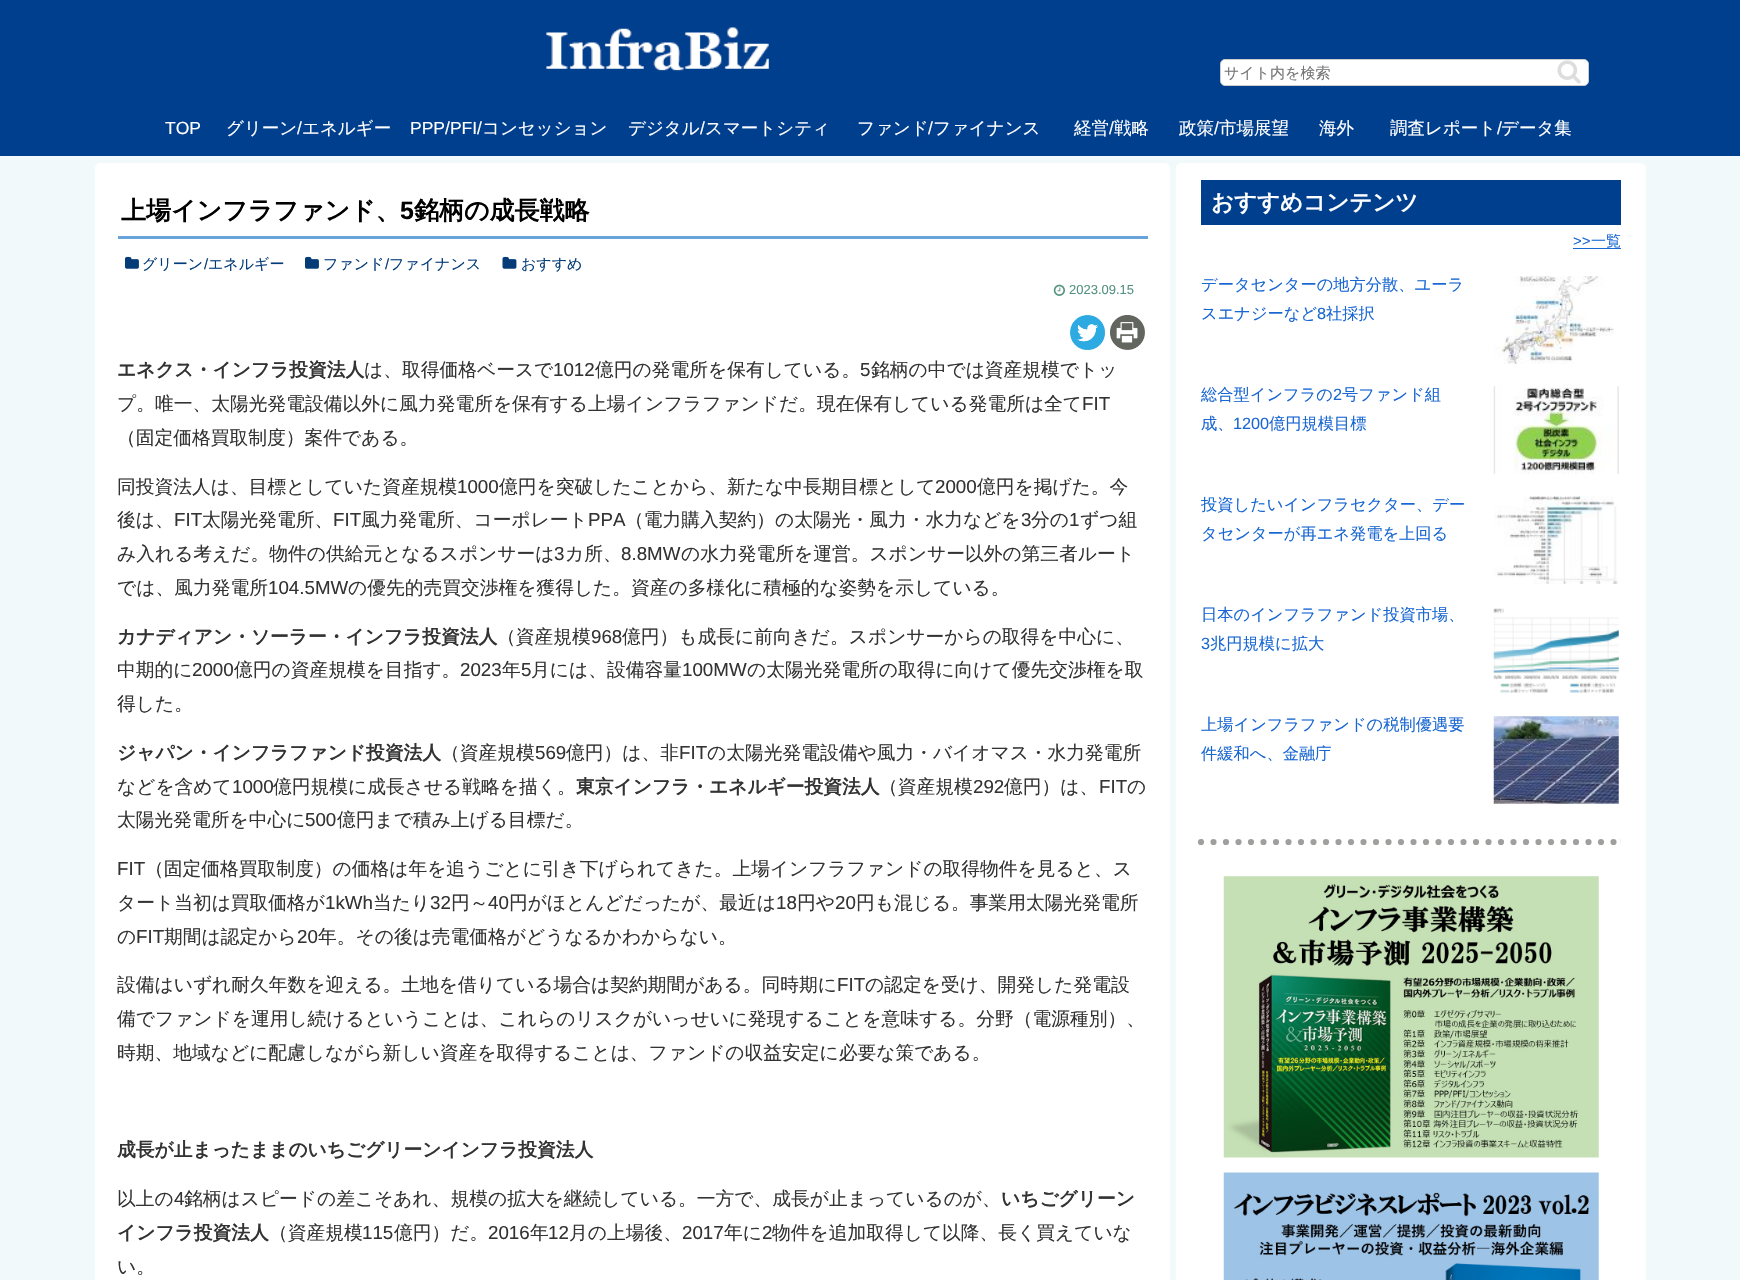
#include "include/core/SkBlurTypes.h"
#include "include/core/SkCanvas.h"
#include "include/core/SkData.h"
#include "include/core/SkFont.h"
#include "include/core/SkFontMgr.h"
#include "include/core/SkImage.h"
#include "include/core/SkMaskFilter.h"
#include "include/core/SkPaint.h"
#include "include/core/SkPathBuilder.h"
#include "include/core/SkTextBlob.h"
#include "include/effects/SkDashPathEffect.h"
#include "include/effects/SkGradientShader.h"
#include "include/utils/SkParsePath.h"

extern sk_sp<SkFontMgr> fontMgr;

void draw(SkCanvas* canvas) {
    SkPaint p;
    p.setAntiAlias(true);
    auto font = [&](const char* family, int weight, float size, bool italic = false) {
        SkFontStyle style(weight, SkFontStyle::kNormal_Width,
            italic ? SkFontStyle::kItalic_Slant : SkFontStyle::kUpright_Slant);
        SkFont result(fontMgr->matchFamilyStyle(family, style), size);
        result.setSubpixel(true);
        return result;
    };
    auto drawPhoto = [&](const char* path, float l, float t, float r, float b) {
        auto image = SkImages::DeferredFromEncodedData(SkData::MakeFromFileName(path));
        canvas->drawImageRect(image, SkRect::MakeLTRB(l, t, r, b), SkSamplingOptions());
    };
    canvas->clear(0xFFF1F9FA);
    p.setColor(0xFF003F8E);
    canvas->drawRect(SkRect::MakeLTRB(0, 0, 1740, 156), p);
    drawPhoto("media/1.png", 546, 27, 769, 71);
    p.setColor(0xFFFFFFFF);
    canvas->drawRoundRect(SkRect::MakeLTRB(1220.5f, 59.5f, 1588.5f, 85.5f), 4.5f, 4.5f, p);
    p.setStyle(SkPaint::kStroke_Style);
    p.setStrokeWidth(1);
    p.setColor(0xFFCCCCCC);
    canvas->drawRoundRect(SkRect::MakeLTRB(1220.5f, 59.5f, 1588.5f, 85.5f), 4.5f, 4.5f, p);
    auto font1 = font("WenQuanYi Zen Hei", 500, 15);
    p.setStyle(SkPaint::kFill_Style);
    p.setColor(0xFF757575);
    canvas->drawString("サイト内を検索", 1224, 78, font1, p);
    drawPhoto("media/2.png", 1557, 60, 1581, 84);
    auto font2 = font("Liberation Sans", 400, 17.5f);
    p.setColor(0xFFFFFFFF);
    canvas->drawString("TOP", 165, 134, font2, p);
    auto font3 = font("WenQuanYi Zen Hei", 500, 17.5f);
    canvas->drawString("グリーン", 226, 134, font3, p);
    canvas->drawString("/", 297, 134, font2, p);
    canvas->drawString("エネルギー", 302, 134, font3, p);
    canvas->drawString("PPP/PFI/", 410, 134, font2, p);
    canvas->drawString("コンセッション", 482, 134, font3, p);
    canvas->drawString("デジタル", 628, 134, font3, p);
    canvas->drawString("/", 700, 134, font2, p);
    canvas->drawString("スマートシティ", 705, 134, font3, p);
    canvas->drawString("ファンド", 857, 134, font3, p);
    canvas->drawString("/", 928, 134, font2, p);
    canvas->drawString("ファイナンス", 933, 134, font3, p);
    canvas->drawString("経営", 1074, 134, font3, p);
    canvas->drawString("/", 1109, 134, font2, p);
    canvas->drawString("戦略", 1114, 134, font3, p);
    canvas->drawString("政策", 1179, 134, font3, p);
    canvas->drawString("/", 1214, 134, font2, p);
    {
        const struct { const char* s; float x, y; } items[] = {
            {"市場展望", 1219, 134},
            {"海外", 1319, 134},
            {"調査レポート", 1390, 134},
        };
        for (auto [s, x, y] : items) {
            canvas->drawString(s, x, y, font3, p);
        }
    }
    canvas->drawString("/", 1497, 134, font2, p);
    canvas->drawString("データ集", 1501, 134, font3, p);
    canvas->drawRoundRect(SkRect::MakeLTRB(95, 163, 1170, 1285), 5, 5, p);
    auto font4 = font("WenQuanYi Zen Hei", 700, 25);
    p.setColor(0xFF000000);
    canvas->drawString("上場インフラファンド、", 121, 219, font4, p);
    auto font5 = font("Liberation Sans", 700, 25);
    canvas->drawString("5", 400, 219, font5, p);
    canvas->drawString("銘柄の成長戦略", 414, 219, font4, p);
    p.setColor(0xFF68A4D9);
    canvas->drawRect(SkRect::MakeLTRB(118, 236, 1148, 239), p);
    drawPhoto("media/3.png", 125, 256, 139, 269);
    p.setColor(0xFF043C78);
    canvas->drawString("グリーン", 142, 269, font1, p);
    auto font6 = font("Liberation Sans", 400, 15);
    canvas->drawString("/", 204, 269, font6, p);
    canvas->drawString("エネルギー", 208, 269, font1, p);
    drawPhoto("media/3.png", 305, 256, 319, 269);
    canvas->drawString("ファンド", 323, 269, font1, p);
    canvas->drawString("/", 385, 269, font6, p);
    canvas->drawString("ファイナンス", 389, 269, font1, p);
    drawPhoto("media/4.png", 502, 256, 517, 269);
    canvas->drawString("おすすめ", 521, 269, font1, p);
    drawPhoto("media/5.png", 1053, 284, 1065, 296);
    auto font7 = font("Liberation Sans", 400, 13);
    p.setColor(0xFF54917F);
    canvas->drawString("2023.09.15", 1069, 294, font7, p);
    drawPhoto("media/6.png", 1070, 315, 1105, 350);
    drawPhoto("media/7.png", 1110, 315, 1145, 350);
    auto font8 = font("WenQuanYi Zen Hei", 700, 18.75f);
    p.setColor(0xFF333333);
    canvas->drawString("エネクス・インフラ投資法人", 117, 376, font8, p);
    auto font9 = font("WenQuanYi Zen Hei", 500, 18.75f);
    canvas->drawString("は、取得価格ベースで", 364, 376, font9, p);
    auto font10 = font("Liberation Sans", 400, 18.75f);
    canvas->drawString("1012", 553, 376, font10, p);
    canvas->drawString("億円の発電所を保有している。", 595, 376, font9, p);
    canvas->drawString("5", 860, 376, font10, p);
    canvas->drawString("銘柄の中では資産規模でトッ", 871, 376, font9, p);
    canvas->drawString("プ。唯一、太陽光発電設備以外に風力発電所を保有する上場インフラファンドだ。現在保有している発電所は全て", 117, 410, font9, p);
    canvas->drawString("FIT", 1082, 410, font10, p);
    canvas->drawString("（固定価格買取制度）案件である。", 117, 444, font9, p);
    canvas->drawString("同投資法人は、目標としていた資産規模", 117, 493, font9, p);
    canvas->drawString("1000", 457, 493, font10, p);
    canvas->drawString("億円を突破したことから、新たな中長期目標として", 499, 493, font9, p);
    canvas->drawString("2000", 935, 493, font10, p);
    canvas->drawString("億円を掲げた。今", 977, 493, font9, p);
    canvas->drawString("後は、", 117, 526, font9, p);
    canvas->drawString("FIT", 174, 526, font10, p);
    canvas->drawString("太陽光発電所、", 202, 526, font9, p);
    canvas->drawString("FIT", 333, 526, font10, p);
    canvas->drawString("風力発電所、コーポレート", 361, 526, font9, p);
    canvas->drawString("PPA", 588, 526, font10, p);
    canvas->drawString("（電力購入契約）の太陽光・風力・水力などを", 625, 526, font9, p);
    canvas->drawString("3", 1021, 526, font10, p);
    canvas->drawString("分の", 1031, 526, font9, p);
    canvas->drawString("1", 1069, 526, font10, p);
    canvas->drawString("ずつ組", 1080, 526, font9, p);
    canvas->drawString("み入れる考えだ。物件の供給元となるスポンサーは", 117, 560, font9, p);
    canvas->drawString("3", 554, 560, font10, p);
    canvas->drawString("カ所、", 565, 560, font9, p);
    canvas->drawString("8.8MW", 621, 560, font10, p);
    canvas->drawString("の水力発電所を運営。スポンサー以外の第三者ルート", 681, 560, font9, p);
    canvas->drawString("では、風力発電所", 117, 594, font9, p);
    canvas->drawString("104.5MW", 268, 594, font10, p);
    canvas->drawString("の優先的売買交渉権を獲得した。資産の多様化に積極的な姿勢を示している。", 348, 594, font9, p);
    canvas->drawString("カナディアン・ソーラー・インフラ投資法人", 117, 643, font8, p);
    canvas->drawString("（資産規模", 497, 643, font9, p);
    canvas->drawString("968", 591, 643, font10, p);
    canvas->drawString("億円）も成長に前向きだ。スポンサーからの取得を中心に、", 622, 643, font9, p);
    canvas->drawString("中期的に", 117, 676, font9, p);
    canvas->drawString("2000", 192, 676, font10, p);
    canvas->drawString("億円の資産規模を目指す。", 234, 676, font9, p);
    canvas->drawString("2023", 460, 676, font10, p);
    canvas->drawString("年", 502, 676, font9, p);
    canvas->drawString("5", 521, 676, font10, p);
    canvas->drawString("月には、設備容量", 531, 676, font9, p);
    canvas->drawString("100MW", 682, 676, font10, p);
    canvas->drawString("の太陽光発電所の取得に向けて優先交渉権を取", 747, 676, font9, p);
    canvas->drawString("得した。", 117, 710, font9, p);
    canvas->drawString("ジャパン・インフラファンド投資法人", 117, 759, font8, p);
    canvas->drawString("（資産規模", 441, 759, font9, p);
    canvas->drawString("569", 535, 759, font10, p);
    canvas->drawString("億円）は、非", 566, 759, font9, p);
    canvas->drawString("FIT", 679, 759, font10, p);
    canvas->drawString("の太陽光発電設備や風力・バイオマス・水力発電所", 707, 759, font9, p);
    canvas->drawString("などを含めて", 117, 793, font9, p);
    canvas->drawString("1000", 232, 793, font10, p);
    canvas->drawString("億円規模に成長させる戦略を描く。", 273, 793, font9, p);
    canvas->drawString("東京インフラ・エネルギー投資法人", 576, 793, font8, p);
    canvas->drawString("（資産規模", 879, 793, font9, p);
    canvas->drawString("292", 973, 793, font10, p);
    canvas->drawString("億円）は、", 1004, 793, font9, p);
    canvas->drawString("FIT", 1099, 793, font10, p);
    canvas->drawString("の", 1127, 793, font9, p);
    canvas->drawString("太陽光発電所を中心に", 117, 826, font9, p);
    canvas->drawString("500", 305, 826, font10, p);
    canvas->drawString("億円まで積み上げる目標だ。", 337, 826, font9, p);
    canvas->drawString("FIT", 117, 875, font10, p);
    canvas->drawString("（固定価格買取制度）の価格は年を追うごとに引き下げられてきた。上場インフラファンドの取得物件を見ると、ス", 145, 875, font9, p);
    canvas->drawString("タート当初は買取価格が", 117, 909, font9, p);
    canvas->drawString("1kWh", 325, 909, font10, p);
    canvas->drawString("当たり", 373, 909, font9, p);
    canvas->drawString("32", 430, 909, font10, p);
    canvas->drawString("円～", 451, 909, font9, p);
    canvas->drawString("40", 488, 909, font10, p);
    canvas->drawString("円がほとんどだったが、最近は", 509, 909, font9, p);
    canvas->drawString("18", 776, 909, font10, p);
    canvas->drawString("円や", 797, 909, font9, p);
    canvas->drawString("20", 835, 909, font10, p);
    canvas->drawString("円も混じる。事業用太陽光発電所", 856, 909, font9, p);
    canvas->drawString("の", 117, 943, font9, p);
    canvas->drawString("FIT", 136, 943, font10, p);
    canvas->drawString("期間は認定から", 164, 943, font9, p);
    canvas->drawString("20", 297, 943, font10, p);
    canvas->drawString("年。その後は売電価格がどうなるかわからない。", 318, 943, font9, p);
    canvas->drawString("設備はいずれ耐久年数を迎える。土地を借りている場合は契約期間がある。同時期に", 117, 991, font9, p);
    canvas->drawString("FIT", 837, 991, font10, p);
    {
        const struct { const char* s; float x, y; } items[] = {
            {"の認定を受け、開発した発電設", 865, 991},
            {"備でファンドを運用し続けるということは、これらのリスクがいっせいに発現することを意味する。分野（電源種別）、", 117, 1025},
            {"時期、地域などに配慮しながら新しい資産を取得することは、ファンドの収益安定に必要な策である。", 117, 1059},
        };
        for (auto [s, x, y] : items) {
            canvas->drawString(s, x, y, font9, p);
        }
    }
    canvas->drawString("成長が止まったままのいちごグリーンインフラ投資法人", 117, 1156, font8, p);
    canvas->drawString("以上の", 117, 1205, font9, p);
    canvas->drawString("4", 174, 1205, font10, p);
    canvas->drawString("銘柄はスピードの差こそあれ、規模の拡大を継続している。一方で、成長が止まっているのが、", 184, 1205, font9, p);
    canvas->drawString("いちごグリーン", 1001, 1205, font8, p);
    canvas->drawString("インフラ投資法人", 117, 1239, font8, p);
    canvas->drawString("（資産規模", 269, 1239, font9, p);
    canvas->drawString("115", 362, 1239, font10, p);
    canvas->drawString("億円）だ。", 394, 1239, font9, p);
    canvas->drawString("2016", 488, 1239, font10, p);
    canvas->drawString("年", 530, 1239, font9, p);
    canvas->drawString("12", 548, 1239, font10, p);
    canvas->drawString("月の上場後、", 569, 1239, font9, p);
    canvas->drawString("2017", 682, 1239, font10, p);
    canvas->drawString("年に", 724, 1239, font9, p);
    canvas->drawString("2", 762, 1239, font10, p);
    canvas->drawString("物件を追加取得して以降、長く買えていな", 772, 1239, font9, p);
    canvas->drawString("い。", 117, 1273, font9, p);
    p.setColor(0xFFFFFFFF);
    canvas->drawRoundRect(SkRect::MakeLTRB(1176, 163, 1646, 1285), 5, 5, p);
    p.setColor(0xFF003F8E);
    canvas->drawRect(SkRect::MakeLTRB(1201, 180, 1621, 225), p);
    auto font11 = font("WenQuanYi Zen Hei", 700, 22.5f);
    p.setColor(0xFFFFFFFF);
    canvas->drawString("おすすめコンテンツ", 1211, 210, font11, p);
    p.setColor(0xFF1967D2);
    canvas->drawString(">>", 1573, 246, font6, p);
    canvas->drawRect(SkRect::MakeLTRB(1573, 248, 1621, 249), p);
    canvas->drawString("一覧", 1591, 246, font1, p);
    auto font12 = font("WenQuanYi Zen Hei", 500, 16.25f);
    canvas->drawString("データセンターの地方分散、ユーラ", 1201, 290, font12, p);
    canvas->drawString("スエナジーなど", 1201, 319, font12, p);
    auto font13 = font("Liberation Sans", 400, 16.25f);
    canvas->drawString("8", 1317, 319, font13, p);
    canvas->drawString("社採択", 1326, 319, font12, p);
    drawPhoto("media/8.png", 1494, 276, 1614, 364);
    canvas->drawString("総合型インフラの", 1201, 400, font12, p);
    canvas->drawString("2", 1333, 400, font13, p);
    canvas->drawString("号ファンド組", 1342, 400, font12, p);
    canvas->drawString("成、", 1201, 429, font12, p);
    canvas->drawString("1200", 1233, 429, font13, p);
    canvas->drawString("億円規模目標", 1269, 429, font12, p);
    drawPhoto("media/9.png", 1493, 386, 1619, 474);
    canvas->drawString("投資したいインフラセクター、デー", 1201, 510, font12, p);
    canvas->drawString("タセンターが再エネ発電を上回る", 1201, 539, font12, p);
    drawPhoto("media/10.png", 1494, 496, 1618, 584);
    canvas->drawString("日本のインフラファンド投資市場、", 1201, 620, font12, p);
    canvas->drawString("3", 1201, 649, font13, p);
    canvas->drawString("兆円規模に拡大", 1210, 649, font12, p);
    drawPhoto("media/11.png", 1493, 608, 1619, 693);
    canvas->drawString("上場インフラファンドの税制優遇要", 1201, 730, font12, p);
    canvas->drawString("件緩和へ、金融庁", 1201, 759, font12, p);
    drawPhoto("media/12.png", 1493, 716, 1619, 804);
    p.setColor(0xFFEEEEEE);
    canvas->drawPath(SkPathBuilder().moveTo(1621, 839).lineTo(1621, 845).lineTo(1620, 839).close().detach(), p);
    p.setStyle(SkPaint::kStroke_Style);
    p.setStrokeWidth(6.2f);
    p.setStrokeCap(SkPaint::kRound_Cap);
    p.setColor(0xFF9FA09E);
    p.setPathEffect(SkDashPathEffect::Make({{0, 12.5f}}, 0));
    canvas->drawPath(SkPathBuilder().moveTo(1201, 842).lineTo(1621, 842).detach(), p);
    p.setPathEffect(nullptr);
    p.setStyle(SkPaint::kFill_Style);
    p.setColor(0xFF9F9F9F);
    canvas->drawPath(SkPathBuilder().moveTo(1201, 845).lineTo(1201, 839).lineTo(1202.5f, 839).close().detach(), p);
    drawPhoto("media/13.png", 1223, 876, 1599, 1158);
    drawPhoto("media/14.png", 1223, 1172, 1599, 1280);
}
